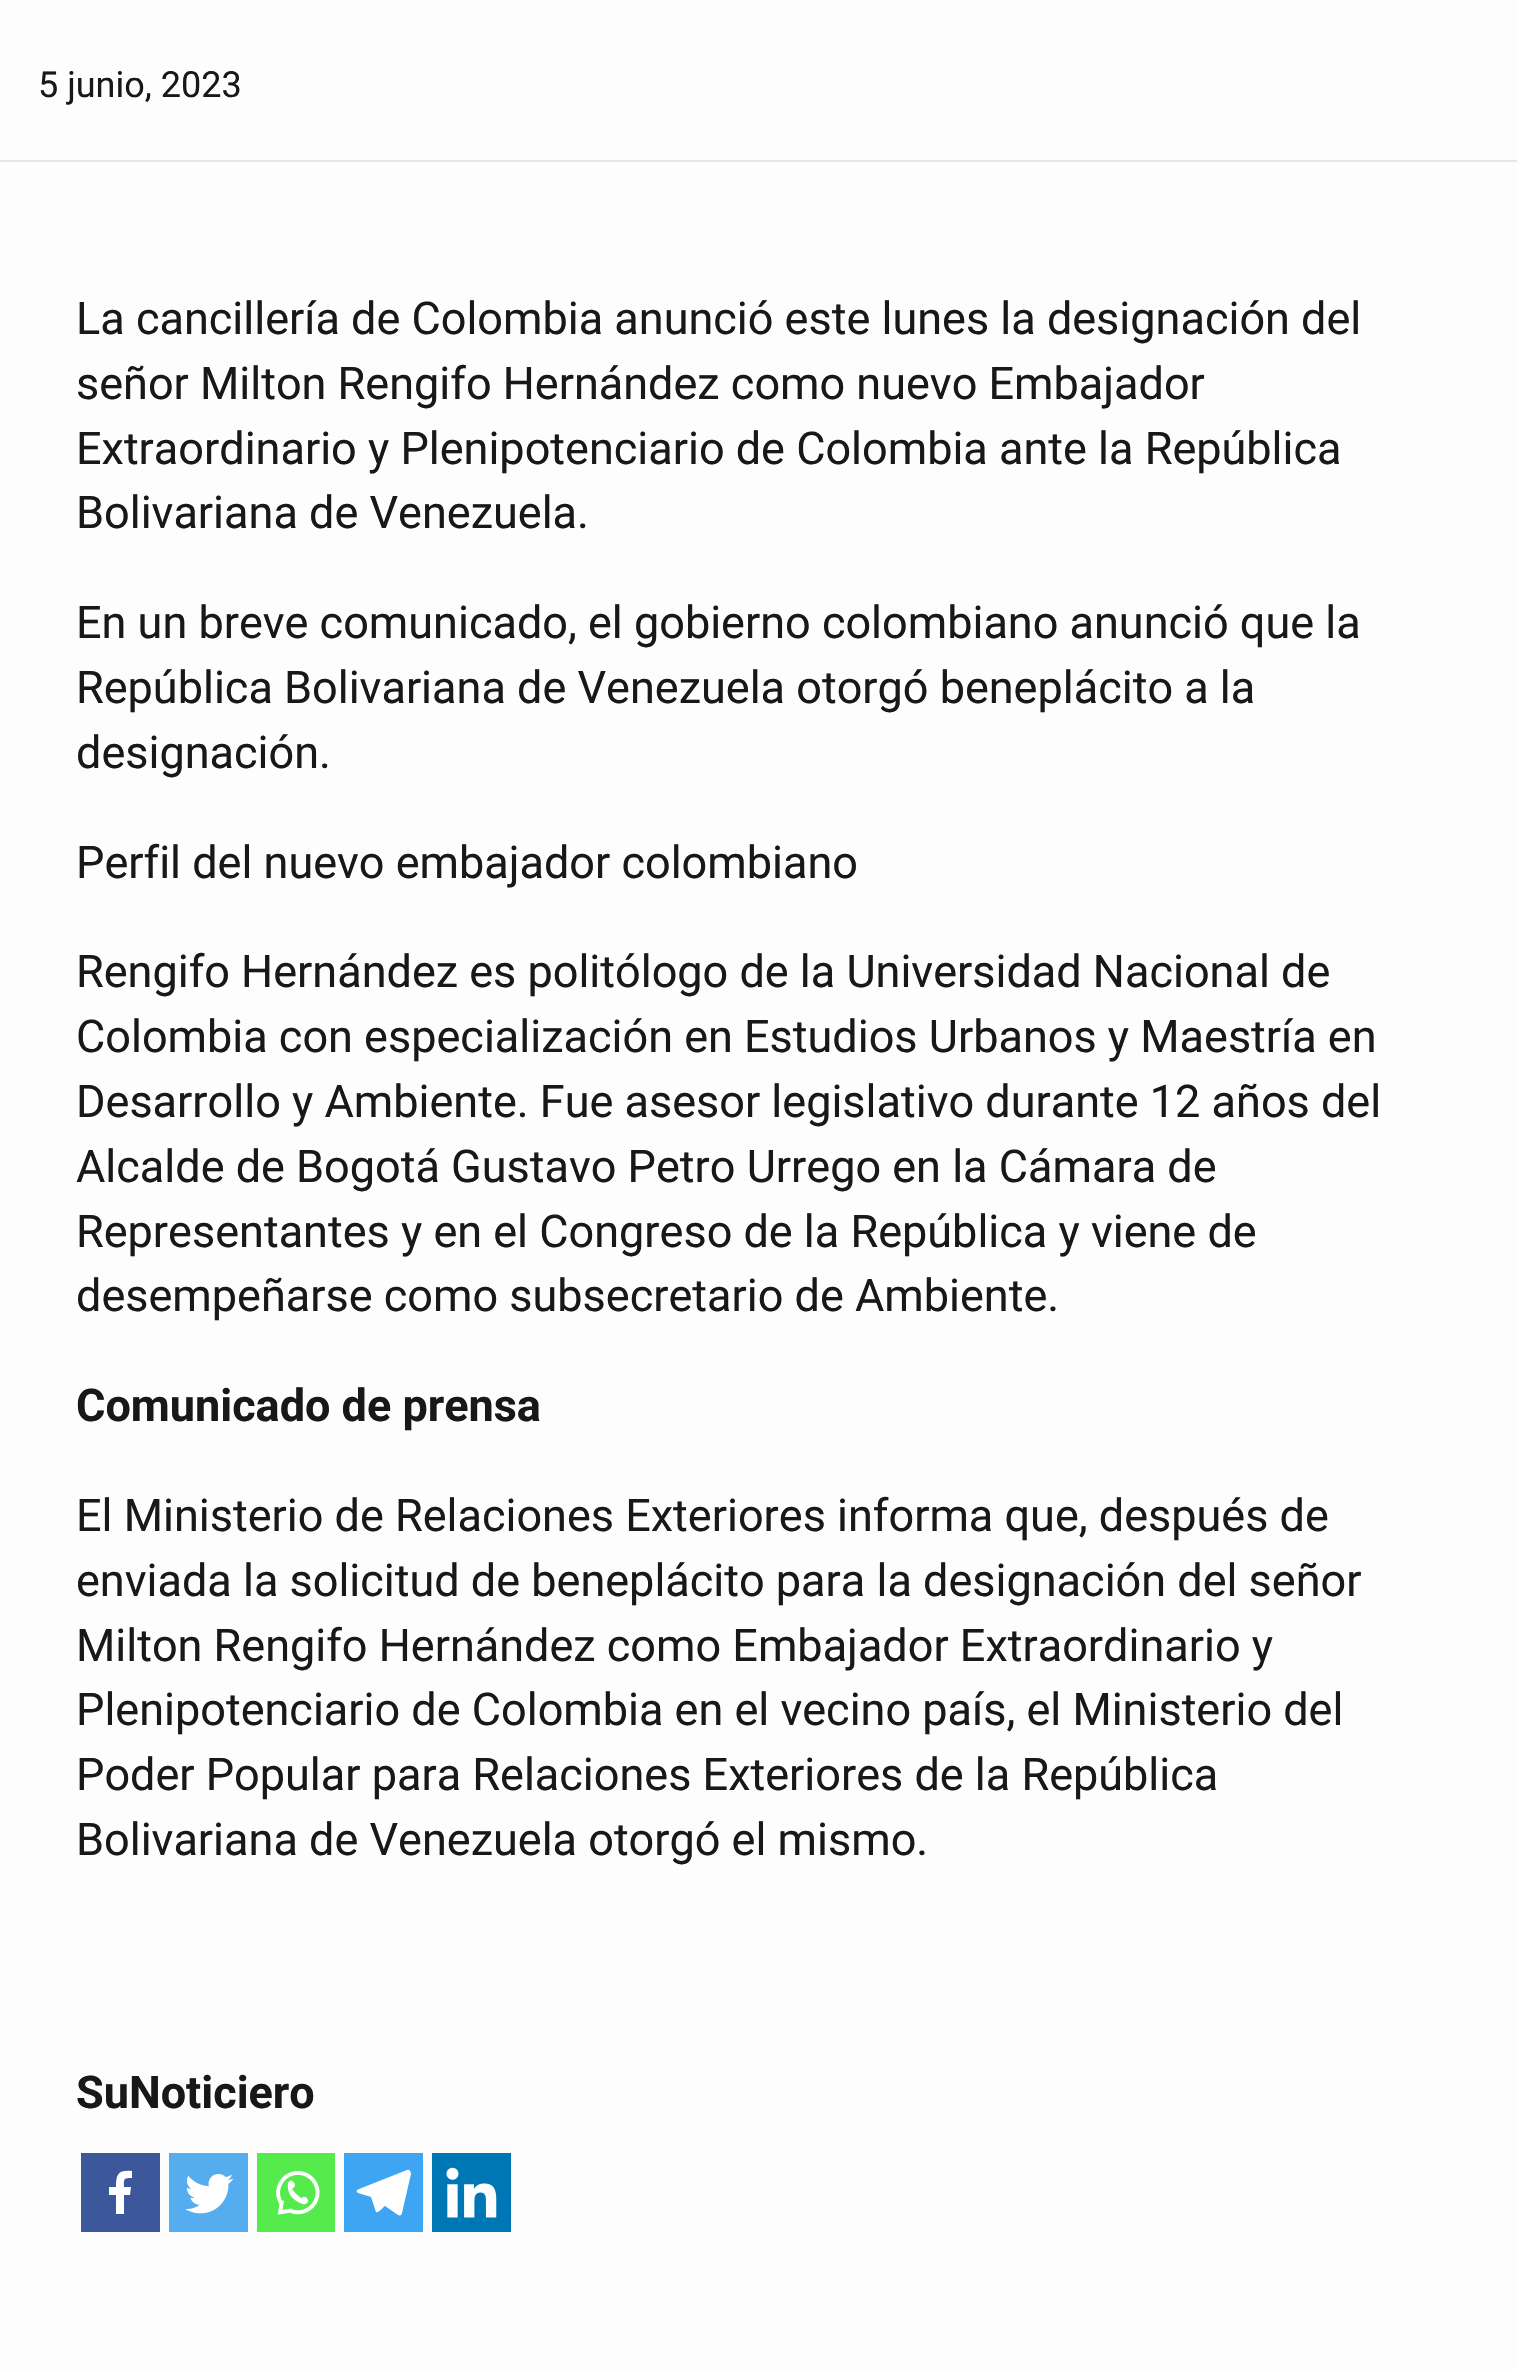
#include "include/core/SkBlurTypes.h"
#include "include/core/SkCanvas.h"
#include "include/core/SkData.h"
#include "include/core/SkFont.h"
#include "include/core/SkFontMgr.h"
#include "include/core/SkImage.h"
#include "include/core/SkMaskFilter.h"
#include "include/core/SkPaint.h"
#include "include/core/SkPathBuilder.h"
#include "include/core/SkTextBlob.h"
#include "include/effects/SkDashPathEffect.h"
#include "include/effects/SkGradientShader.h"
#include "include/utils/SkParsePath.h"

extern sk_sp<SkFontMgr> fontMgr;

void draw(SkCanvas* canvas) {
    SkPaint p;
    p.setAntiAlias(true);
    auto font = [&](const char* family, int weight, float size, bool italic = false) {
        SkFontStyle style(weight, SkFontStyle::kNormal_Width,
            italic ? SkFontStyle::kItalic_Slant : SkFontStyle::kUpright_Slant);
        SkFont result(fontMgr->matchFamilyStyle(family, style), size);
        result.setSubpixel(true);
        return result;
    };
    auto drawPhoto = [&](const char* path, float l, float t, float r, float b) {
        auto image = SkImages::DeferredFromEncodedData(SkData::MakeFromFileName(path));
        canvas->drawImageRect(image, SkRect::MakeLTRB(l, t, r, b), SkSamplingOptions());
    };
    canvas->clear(0xFFFDFDFD);
    p.setColor(0xFFE7E7E7);
    canvas->drawRect(SkRect::MakeLTRB(0, 160, 1517, 162), p);
    auto font1 = font("Roboto", 400, 36);
    p.setColor(0xFF181818);
    canvas->drawString("5 junio, 2023", 38, 97, font1, p);
    auto font2 = font("Roboto", 400, 45);
    {
        const struct { const char* s; float x, y; } items[] = {
            {"La cancillería de Colombia anunció este lunes la designación del", 76, 334},
            {"señor Milton Rengifo Hernández como nuevo Embajador", 76, 399},
            {"Extraordinario y Plenipotenciario de Colombia ante la República", 76, 464},
            {"Bolivariana de Venezuela.", 76, 528},
            {"En un breve comunicado, el gobierno colombiano anunció que la", 76, 638},
            {"República Bolivariana de Venezuela otorgó beneplácito a la", 76, 703},
            {"designación.", 76, 768},
            {"Perfil del nuevo embajador colombiano", 76, 878},
            {"Rengifo Hernández es politólogo de la Universidad Nacional de", 76, 987},
            {"Colombia con especialización en Estudios Urbanos y Maestría en", 76, 1052},
            {"Desarrollo y Ambiente. Fue asesor legislativo durante 12 años del", 76, 1117},
            {"Alcalde de Bogotá Gustavo Petro Urrego en la Cámara de", 76, 1182},
            {"Representantes y en el Congreso de la República y viene de", 76, 1247},
            {"desempeñarse como subsecretario de Ambiente.", 76, 1311},
        };
        for (auto [s, x, y] : items) {
            canvas->drawString(s, x, y, font2, p);
        }
    }
    auto font3 = font("Roboto", 700, 45);
    canvas->drawString("Comunicado de prensa", 76, 1421, font3, p);
    {
        const struct { const char* s; float x, y; } items[] = {
            {"El Ministerio de Relaciones Exteriores informa que, después de", 76, 1531},
            {"enviada la solicitud de beneplácito para la designación del señor", 76, 1596},
            {"Milton Rengifo Hernández como Embajador Extraordinario y", 76, 1661},
            {"Plenipotenciario de Colombia en el vecino país, el Ministerio del", 76, 1725},
            {"Poder Popular para Relaciones Exteriores de la República", 76, 1790},
            {"Bolivariana de Venezuela otorgó el mismo.", 76, 1855},
        };
        for (auto [s, x, y] : items) {
            canvas->drawString(s, x, y, font2, p);
        }
    }
    canvas->drawString("SuNoticiero", 76, 2108, font3, p);
    p.setColor(0xFF3C589A);
    canvas->drawRect(SkRect::MakeLTRB(81, 2153, 160, 2232), p);
    p.setColor(0xFFFFFFFF);
    canvas->drawPath(SkPathBuilder().moveTo(124, 2214).lineTo(124, 2195).lineTo(130, 2195).lineTo(131, 2187).lineTo(124, 2187).cubicTo(124, 2179, 123, 2178, 132, 2178).lineTo(132, 2171).cubicTo(118, 2170, 116, 2174, 116, 2187).lineTo(109, 2187).lineTo(109, 2195).lineTo(116, 2195).lineTo(116, 2214).close().detach(), p);
    p.setColor(0xFF55ACEE);
    canvas->drawRect(SkRect::MakeLTRB(169, 2153, 248, 2232), p);
    drawPhoto("media/1.png", 185, 2174, 234, 2214);
    p.setColor(0xFF55EB4C);
    canvas->drawRect(SkRect::MakeLTRB(257, 2153, 335, 2232), p);
    drawPhoto("media/2.png", 276, 2171, 320, 2215);
    p.setColor(0xFF3DA5F1);
    canvas->drawRect(SkRect::MakeLTRB(344, 2153, 423, 2232), p);
    p.setColor(0xFFFFFFFF);
    canvas->drawPath(SkPathBuilder().moveTo(407, 2170).lineTo(359, 2189).cubicTo(356, 2190, 356, 2192, 358, 2193).lineTo(371, 2197).lineTo(376, 2212).cubicTo(378, 2214, 384, 2206, 385, 2206).lineTo(398, 2215).cubicTo(400, 2216, 402, 2215, 402, 2213).lineTo(411, 2174).cubicTo(411, 2171, 409, 2169, 407, 2170).close().detach(), p);
    p.setColor(0xFF0077B5);
    canvas->drawRect(SkRect::MakeLTRB(432, 2153, 511, 2232), p);
    drawPhoto("media/3.png", 446, 2167, 497, 2218);
}
